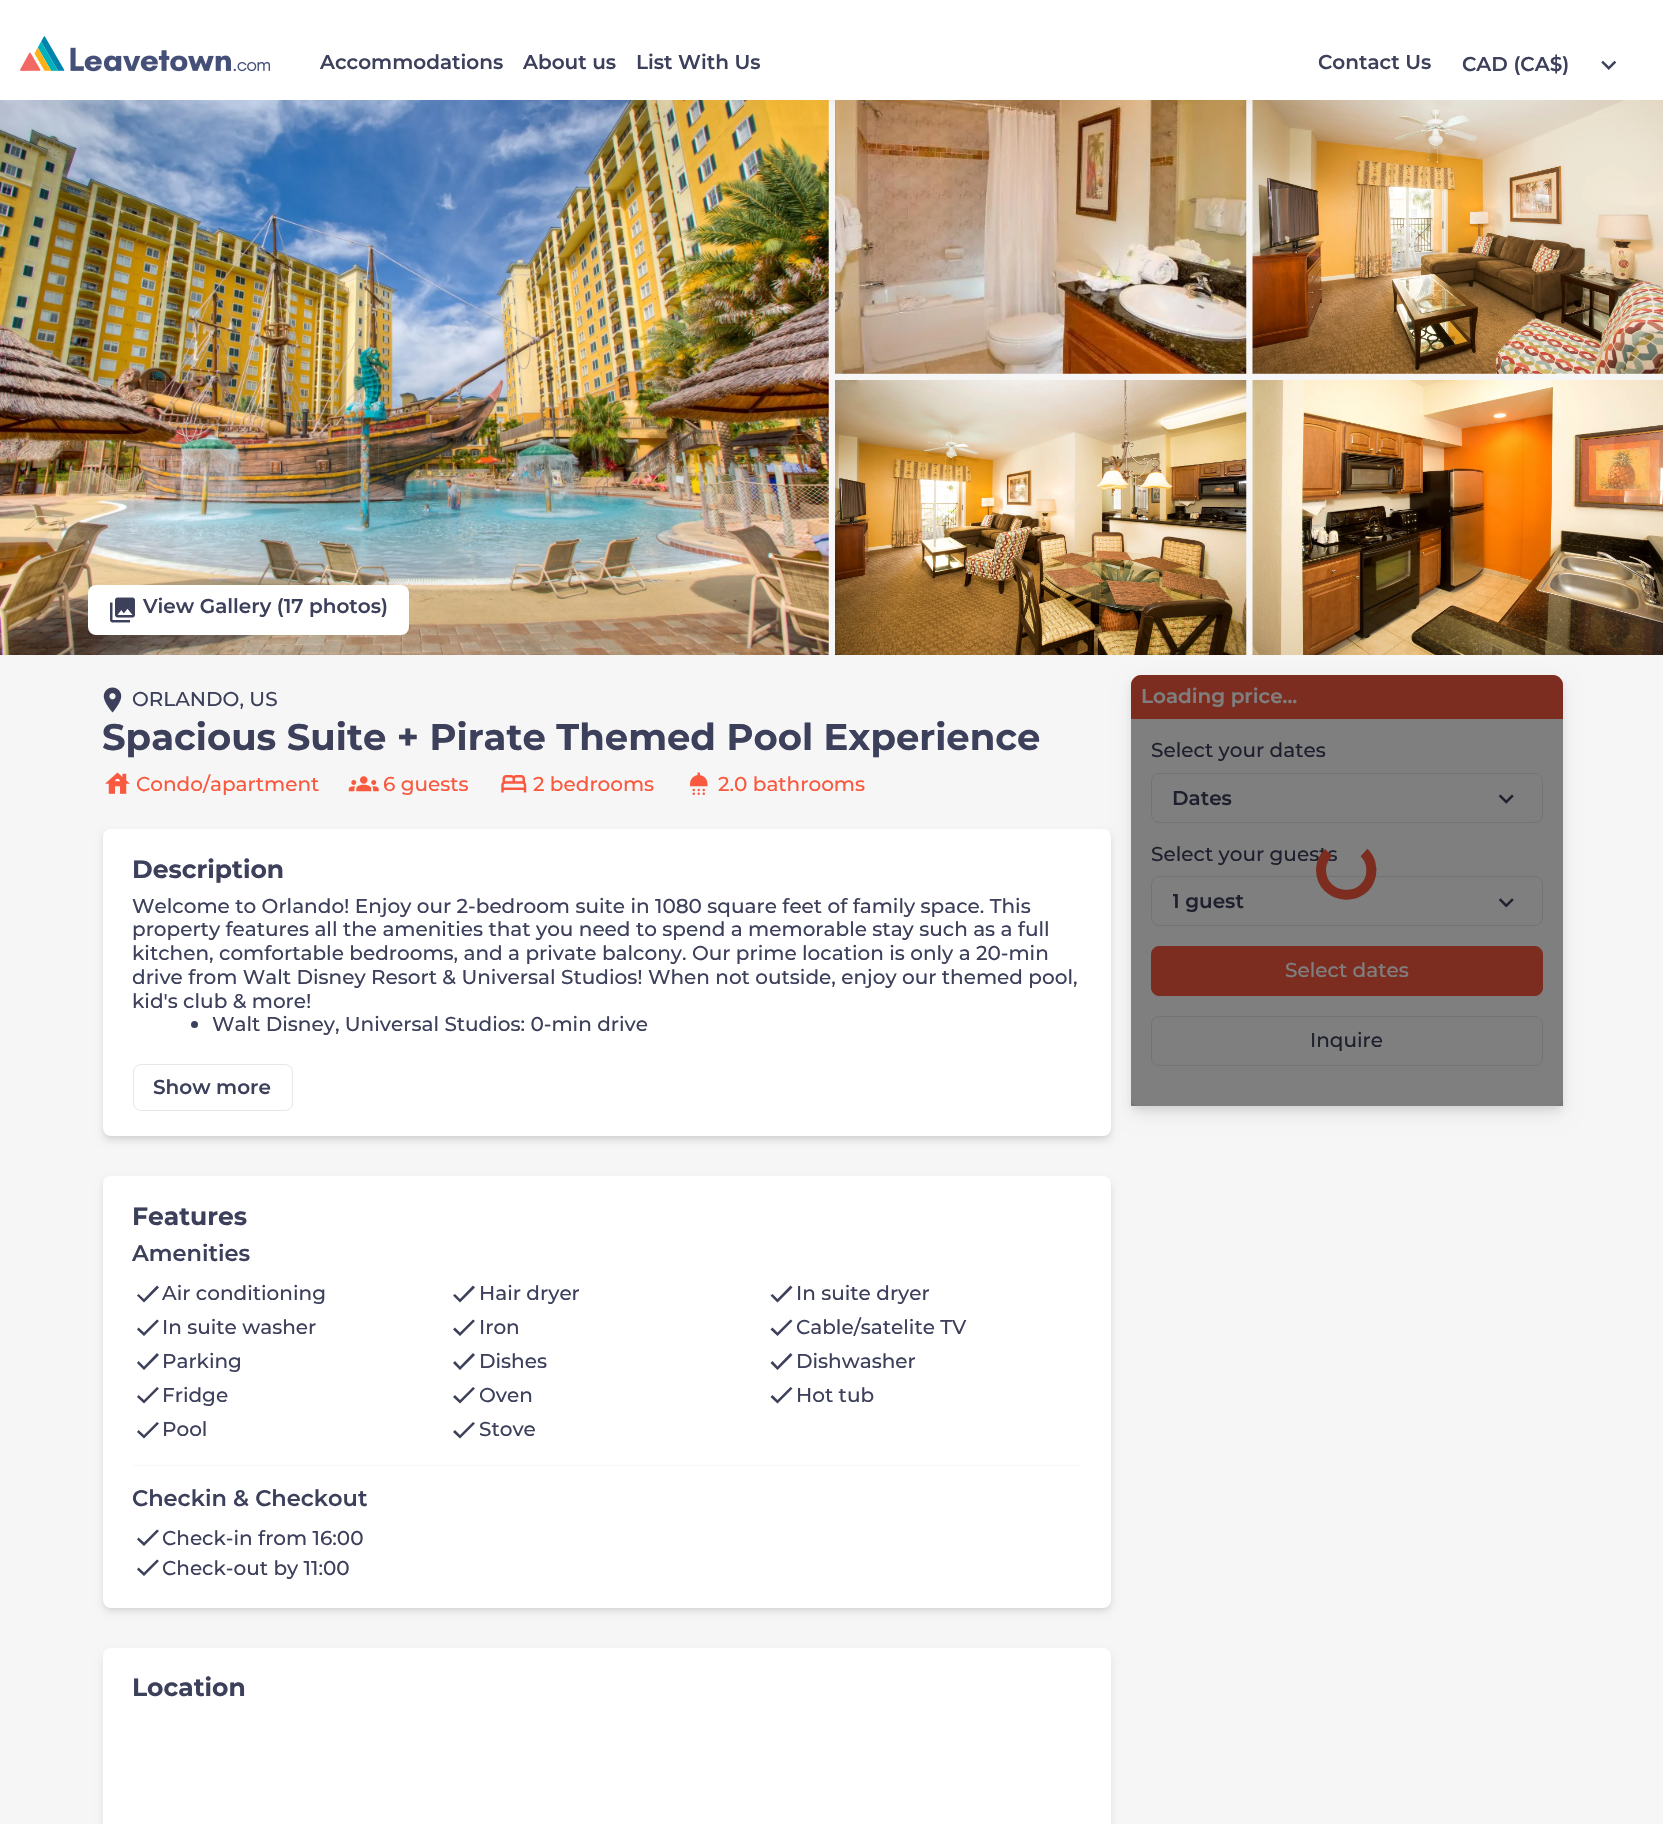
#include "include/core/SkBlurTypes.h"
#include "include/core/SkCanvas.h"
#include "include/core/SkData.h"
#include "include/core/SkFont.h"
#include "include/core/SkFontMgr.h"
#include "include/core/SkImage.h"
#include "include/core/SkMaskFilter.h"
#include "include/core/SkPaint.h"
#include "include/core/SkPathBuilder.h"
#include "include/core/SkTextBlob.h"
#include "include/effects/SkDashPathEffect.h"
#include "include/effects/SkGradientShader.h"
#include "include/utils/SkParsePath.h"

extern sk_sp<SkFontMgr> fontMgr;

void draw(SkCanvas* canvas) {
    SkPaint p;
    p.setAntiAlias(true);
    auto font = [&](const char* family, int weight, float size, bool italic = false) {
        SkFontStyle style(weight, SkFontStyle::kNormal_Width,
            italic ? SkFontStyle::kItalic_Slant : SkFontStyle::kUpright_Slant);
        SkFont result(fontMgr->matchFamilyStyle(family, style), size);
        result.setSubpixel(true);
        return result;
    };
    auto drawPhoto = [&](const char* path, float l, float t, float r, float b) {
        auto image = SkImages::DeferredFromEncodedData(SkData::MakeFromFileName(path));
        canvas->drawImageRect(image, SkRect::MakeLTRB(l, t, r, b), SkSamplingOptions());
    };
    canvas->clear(0xFFF6F6F6);
    p.setColor(0x17000000);
    p.setMaskFilter(SkMaskFilter::MakeBlur(kNormal_SkBlurStyle, 5));
    canvas->drawRect(SkRect::MakeLTRB(0, -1, 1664, 99), p);
    p.setMaskFilter(nullptr);
    p.setColor(0xFFFFFFFF);
    canvas->drawRect(SkRect::MakeLTRB(0, 0, 1663, 100), p);
    drawPhoto("media/1.png", 20, 36, 270, 72);
    auto font1 = font("Montserrat", 600, 20);
    p.setColor(0xFF3D405B);
    {
        const struct { const char* s; float x, y; } items[] = {
            {"Accommodations", 320, 69},
            {"About us", 523, 69},
            {"List With Us", 636, 69},
            {"Contact Us", 1318, 69},
            {"CAD (CA$)", 1462, 71},
        };
        for (auto [s, x, y] : items) {
            canvas->drawString(s, x, y, font1, p);
        }
    }
    drawPhoto("media/2.png", 1601, 60, 1617, 70);
    drawPhoto("media/3.png", 0, 100, 829, 655);
    drawPhoto("media/4.png", 835, 100, 1247, 374);
    drawPhoto("media/5.png", 1252, 100, 1663, 374);
    p.setColor(0xFFFFFFFF);
    canvas->drawRoundRect(SkRect::MakeLTRB(88, 585, 409, 635), 8, 8, p);
    drawPhoto("media/6.png", 110, 597, 135, 623);
    p.setColor(0xFF3D405B);
    canvas->drawString("View Gallery (17 photos)", 143, 613, font1, p);
    drawPhoto("media/7.png", 835, 380, 1247, 655);
    drawPhoto("media/8.png", 1252, 380, 1663, 655);
    drawPhoto("media/9.png", 103, 687, 122, 713);
    auto font2 = font("Montserrat", 500, 20);
    canvas->drawString("ORLANDO, US", 132, 706, font2, p);
    auto font3 = font("Montserrat", 700, 37);
    canvas->drawString("Spacious Suite + Pirate Themed Pool Experience", 102, 750, font3, p);
    drawPhoto("media/10.png", 105, 772, 130, 794);
    p.setColor(0xFFF9593F);
    canvas->drawString("Condo/apartment", 136, 791, font2, p);
    drawPhoto("media/11.png", 348, 776, 379, 792);
    canvas->drawString("6 guests", 383, 791, font2, p);
    drawPhoto("media/12.png", 501, 775, 527, 793);
    canvas->drawString("2 bedrooms", 533, 791, font2, p);
    drawPhoto("media/13.png", 690, 772, 708, 795);
    canvas->drawString("2.0 bathrooms", 718, 791, font2, p);
    p.setColor(0x0F000000);
    p.setMaskFilter(SkMaskFilter::MakeBlur(kNormal_SkBlurStyle, 2.5f));
    canvas->drawRoundRect(SkRect::MakeLTRB(104, 833, 1110, 1138), 6, 6, p);
    p.setMaskFilter(nullptr);
    p.setColor(0x1A000000);
    p.setMaskFilter(SkMaskFilter::MakeBlur(kNormal_SkBlurStyle, 4));
    canvas->drawRoundRect(SkRect::MakeLTRB(104, 835, 1110, 1140), 6, 6, p);
    p.setMaskFilter(nullptr);
    p.setColor(0xFFFFFFFF);
    canvas->drawRoundRect(SkRect::MakeLTRB(103, 829, 1111, 1136), 8, 8, p);
    auto font4 = font("Montserrat", 700, 25);
    p.setColor(0xFF3D405B);
    canvas->drawString("Description", 132, 878, font4, p);
    {
        const struct { const char* s; float x, y; } items[] = {
            {"Welcome to Orlando! Enjoy our 2-bedroom suite in 1080 square feet of family space. This", 132, 913},
            {"property features all the amenities that you need to spend a memorable stay such as a full", 132, 936},
            {"kitchen, comfortable bedrooms, and a private balcony. Our prime location is only a 20-min", 132, 960},
        };
        for (auto [s, x, y] : items) {
            canvas->drawString(s, x, y, font2, p);
        }
    }
    canvas->save();
    canvas->clipRect(SkRect::MakeLTRB(133, 854, 1081, 1044));
    canvas->drawString("drive from Walt Disney Resort & Universal Studios! When not outside, enjoy our themed pool,", 132, 984, font2, p);
    canvas->restore();
    canvas->drawString("kid's club & more!", 132, 1008, font2, p);
    canvas->drawCircle(194.5f, 1024.5f, 3.5f, p);
    canvas->drawString("Walt Disney, Universal Studios: 0-min drive", 212, 1031, font2, p);
    p.setStyle(SkPaint::kStroke_Style);
    p.setStrokeWidth(1);
    p.setColor(0xFFE5E7EB);
    canvas->drawRoundRect(SkRect::MakeLTRB(133.5f, 1064.5f, 292.5f, 1110.5f), 7.5f, 7.5f, p);
    p.setStyle(SkPaint::kFill_Style);
    p.setColor(0xFF3D405B);
    canvas->drawString("Show more", 153, 1094, font1, p);
    p.setColor(0x0F000000);
    p.setMaskFilter(SkMaskFilter::MakeBlur(kNormal_SkBlurStyle, 2.5f));
    canvas->drawRoundRect(SkRect::MakeLTRB(104, 1180, 1110, 1609), 6, 6, p);
    p.setMaskFilter(nullptr);
    p.setColor(0x1A000000);
    p.setMaskFilter(SkMaskFilter::MakeBlur(kNormal_SkBlurStyle, 4));
    canvas->drawRoundRect(SkRect::MakeLTRB(104, 1183, 1110, 1611), 6, 6, p);
    p.setMaskFilter(nullptr);
    p.setColor(0xFFFFFFFF);
    canvas->drawRoundRect(SkRect::MakeLTRB(103, 1176, 1111, 1608), 8, 8, p);
    p.setColor(0xFF3D405B);
    canvas->drawString("Features", 132, 1225, font4, p);
    auto font5 = font("Montserrat", 600, 22.5f);
    canvas->drawString("Amenities", 132, 1261, font5, p);
    p.setColor(0xFFF6F6F6);
    canvas->drawRect(SkRect::MakeLTRB(133, 1465, 1081, 1466), p);
    p.setColor(0xFF3D405B);
    canvas->drawPath(SkPathBuilder().moveTo(144, 1299).lineTo(157, 1285.5f).lineTo(159, 1287.5f).lineTo(144, 1302.5f).lineTo(137, 1295.5f).lineTo(138.5f, 1294).close().detach(), p);
    canvas->drawString("Air conditioning", 162, 1300, font2, p);
    canvas->drawPath(SkPathBuilder().moveTo(460, 1299).lineTo(473, 1285.5f).lineTo(475, 1287.5f).lineTo(460, 1302.5f).lineTo(453, 1295.5f).lineTo(455, 1294).close().detach(), p);
    canvas->drawString("Hair dryer", 479, 1300, font2, p);
    canvas->drawPath(SkPathBuilder().moveTo(777.5f, 1299).lineTo(790.5f, 1285.5f).lineTo(792.5f, 1287.5f).lineTo(777.5f, 1302.5f).lineTo(770.5f, 1295.5f).lineTo(772.5f, 1294).close().detach(), p);
    canvas->drawString("In suite dryer", 796, 1300, font2, p);
    canvas->drawPath(SkPathBuilder().moveTo(144, 1332.5f).lineTo(157, 1319.5f).lineTo(159, 1321).lineTo(144, 1336).lineTo(137, 1329.5f).lineTo(138.5f, 1327.5f).close().detach(), p);
    canvas->drawString("In suite washer", 162, 1334, font2, p);
    canvas->drawPath(SkPathBuilder().moveTo(460, 1332.5f).lineTo(473, 1319.5f).lineTo(475, 1321).lineTo(460, 1336).lineTo(453, 1329.5f).lineTo(455, 1327.5f).close().detach(), p);
    canvas->drawString("Iron", 479, 1334, font2, p);
    canvas->drawPath(SkPathBuilder().moveTo(777.5f, 1332.5f).lineTo(790.5f, 1319.5f).lineTo(792.5f, 1321).lineTo(777.5f, 1336).lineTo(770.5f, 1329.5f).lineTo(772.5f, 1327.5f).close().detach(), p);
    canvas->drawString("Cable/satelite TV", 796, 1334, font2, p);
    canvas->drawPath(SkPathBuilder().moveTo(144, 1366.5f).lineTo(157, 1353).lineTo(159, 1355).lineTo(144, 1370).lineTo(137, 1363).lineTo(138.5f, 1361).close().detach(), p);
    canvas->drawString("Parking", 162, 1368, font2, p);
    canvas->drawPath(SkPathBuilder().moveTo(460, 1366.5f).lineTo(473, 1353).lineTo(475, 1355).lineTo(460, 1370).lineTo(453, 1363).lineTo(455, 1361).close().detach(), p);
    canvas->drawString("Dishes", 479, 1368, font2, p);
    canvas->drawPath(SkPathBuilder().moveTo(777.5f, 1366.5f).lineTo(790.5f, 1353).lineTo(792.5f, 1355).lineTo(777.5f, 1370).lineTo(770.5f, 1363).lineTo(772.5f, 1361).close().detach(), p);
    canvas->drawString("Dishwasher", 796, 1368, font2, p);
    canvas->drawPath(SkPathBuilder().moveTo(144, 1400).lineTo(157, 1387).lineTo(159, 1388.5f).lineTo(144, 1403.5f).lineTo(137, 1397).lineTo(138.5f, 1395).close().detach(), p);
    canvas->drawString("Fridge", 162, 1402, font2, p);
    canvas->drawPath(SkPathBuilder().moveTo(460, 1400).lineTo(473, 1387).lineTo(475, 1388.5f).lineTo(460, 1403.5f).lineTo(453, 1397).lineTo(455, 1395).close().detach(), p);
    canvas->drawString("Oven", 479, 1402, font2, p);
    canvas->drawPath(SkPathBuilder().moveTo(777.5f, 1400).lineTo(790.5f, 1387).lineTo(792.5f, 1388.5f).lineTo(777.5f, 1403.5f).lineTo(770.5f, 1397).lineTo(772.5f, 1395).close().detach(), p);
    canvas->drawString("Hot tub", 796, 1402, font2, p);
    canvas->drawPath(SkPathBuilder().moveTo(144, 1435).lineTo(157, 1422).lineTo(159, 1423.5f).lineTo(144, 1438.5f).lineTo(137, 1432).lineTo(138.5f, 1430).close().detach(), p);
    canvas->drawString("Pool", 162, 1436, font2, p);
    canvas->drawPath(SkPathBuilder().moveTo(460, 1435).lineTo(473, 1422).lineTo(475, 1423.5f).lineTo(460, 1438.5f).lineTo(453, 1432).lineTo(455, 1430).close().detach(), p);
    canvas->drawString("Stove", 479, 1436, font2, p);
    canvas->drawString("Checkin & Checkout", 132, 1506, font5, p);
    canvas->drawPath(SkPathBuilder().moveTo(144, 1542.5f).lineTo(157, 1529.5f).lineTo(159, 1531).lineTo(144, 1546).lineTo(137, 1539.5f).lineTo(138.5f, 1537.5f).close().detach(), p);
    canvas->drawString("Check-in from 16:00", 162, 1545, font2, p);
    canvas->drawPath(SkPathBuilder().moveTo(144, 1572.5f).lineTo(157, 1559.5f).lineTo(159, 1561).lineTo(144, 1576).lineTo(137, 1569.5f).lineTo(138.5f, 1567.5f).close().detach(), p);
    canvas->drawString("Check-out by 11:00", 162, 1575, font2, p);
    p.setColor(0x1A000000);
    p.setMaskFilter(SkMaskFilter::MakeBlur(kNormal_SkBlurStyle, 4));
    canvas->drawRoundRect(SkRect::MakeLTRB(104, 1654, 1110, 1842), 6, 6, p);
    p.setMaskFilter(nullptr);
    p.setColor(0xFFFFFFFF);
    canvas->drawRoundRect(SkRect::MakeLTRB(103, 1648, 1111, 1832), 8, 8, p);
    p.setColor(0xFF3D405B);
    canvas->drawString("Location", 132, 1696, font4, p);
    p.setColor(0x0F000000);
    p.setMaskFilter(SkMaskFilter::MakeBlur(kNormal_SkBlurStyle, 9));
    canvas->drawRoundRect(SkRect::MakeLTRB(1131, 683, 1563, 1114), 8, 8, p);
    p.setMaskFilter(nullptr);
    p.setColor(0xFFFFFFFF);
    canvas->drawRoundRect(SkRect::MakeLTRB(1131, 675, 1563, 1106), 8, 8, p);
    canvas->save();
    canvas->clipPath(SkPathBuilder(SkPathFillType::kEvenOdd).moveTo(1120, 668).lineTo(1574, 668).lineTo(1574, 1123).lineTo(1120, 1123).close().moveTo(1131, 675).lineTo(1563, 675).lineTo(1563, 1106).lineTo(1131, 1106).close().detach(), true);
    p.setColor(0x1A000000);
    p.setMaskFilter(SkMaskFilter::MakeBlur(kNormal_SkBlurStyle, 4));
    canvas->drawRect(SkRect::MakeLTRB(1133, 681, 1561, 1110), p);
    p.setMaskFilter(nullptr);
    canvas->restore();
    p.setColor(0xFFF9593F);
    canvas->drawPath(SkPathBuilder().moveTo(1141, 675).lineTo(1553, 675).cubicTo(1558.5f, 675, 1563, 679.5f, 1563, 685).lineTo(1563, 719).lineTo(1131, 719).lineTo(1131, 685).cubicTo(1131, 679.5f, 1135.5f, 675, 1141, 675).close().detach(), p);
    p.setColor(0xFFFFFFFF);
    canvas->drawString("Loading price...", 1141, 703, font1, p);
    p.setColor(0xFF3D405B);
    canvas->drawString("Select your dates", 1151, 757, font2, p);
    p.setStyle(SkPaint::kStroke_Style);
    p.setColor(0xFFE5E7EB);
    canvas->drawRoundRect(SkRect::MakeLTRB(1151.5f, 773.5f, 1542.5f, 822.5f), 7.5f, 7.5f, p);
    p.setStyle(SkPaint::kFill_Style);
    p.setColor(0xFF3D405B);
    canvas->drawString("Dates", 1172, 805, font1, p);
    drawPhoto("media/14.png", 1498, 794, 1514, 804);
    canvas->drawString("Select your guests", 1151, 861, font2, p);
    p.setStyle(SkPaint::kStroke_Style);
    p.setColor(0xFFE5E7EB);
    canvas->drawRoundRect(SkRect::MakeLTRB(1151.5f, 876.5f, 1542.5f, 925.5f), 7.5f, 7.5f, p);
    p.setStrokeWidth(10);
    p.setColor(0xFFF9593F);
    canvas->drawPath(SkPathBuilder().moveTo(1364, 852.5f).cubicTo(1370, 858, 1372.5f, 867, 1371, 875).cubicTo(1365, 904, 1321.5f, 900, 1321, 870).cubicTo(1321, 863.5f, 1324, 857, 1328.5f, 852.5f).detach(), p);
    canvas->save();
    canvas->clipRect(SkRect::MakeLTRB(1173, 890, 1244, 915));
    p.setStyle(SkPaint::kFill_Style);
    p.setColor(0xFF3D405B);
    canvas->drawString("1 guest", 1172, 908, font1, p);
    canvas->restore();
    drawPhoto("media/15.png", 1498, 898, 1514, 908);
    p.setColor(0xFFF9593F);
    canvas->drawRoundRect(SkRect::MakeLTRB(1151.5f, 946.5f, 1542.5f, 995.5f), 7.5f, 7.5f, p);
    p.setStyle(SkPaint::kStroke_Style);
    p.setStrokeWidth(1);
    canvas->drawRoundRect(SkRect::MakeLTRB(1151.5f, 946.5f, 1542.5f, 995.5f), 7.5f, 7.5f, p);
    p.setStyle(SkPaint::kFill_Style);
    p.setColor(0xFFFFFFFF);
    canvas->drawString("Select dates", 1285, 977, font2, p);
    p.setStyle(SkPaint::kStroke_Style);
    p.setColor(0xFFE5E7EB);
    canvas->drawRoundRect(SkRect::MakeLTRB(1151.5f, 1016.5f, 1542.5f, 1065.5f), 7.5f, 7.5f, p);
    p.setStyle(SkPaint::kFill_Style);
    p.setColor(0xFF3D405B);
    canvas->drawString("Inquire", 1310, 1047, font2, p);
    p.setColor(0x80000000);
    canvas->drawPath(SkPathBuilder().moveTo(1141, 675).lineTo(1553, 675).cubicTo(1558.5f, 675, 1563, 679.5f, 1563, 685).lineTo(1563, 1106).lineTo(1131, 1106).lineTo(1131, 685).cubicTo(1131, 679.5f, 1135.5f, 675, 1141, 675).close().detach(), p);
}
